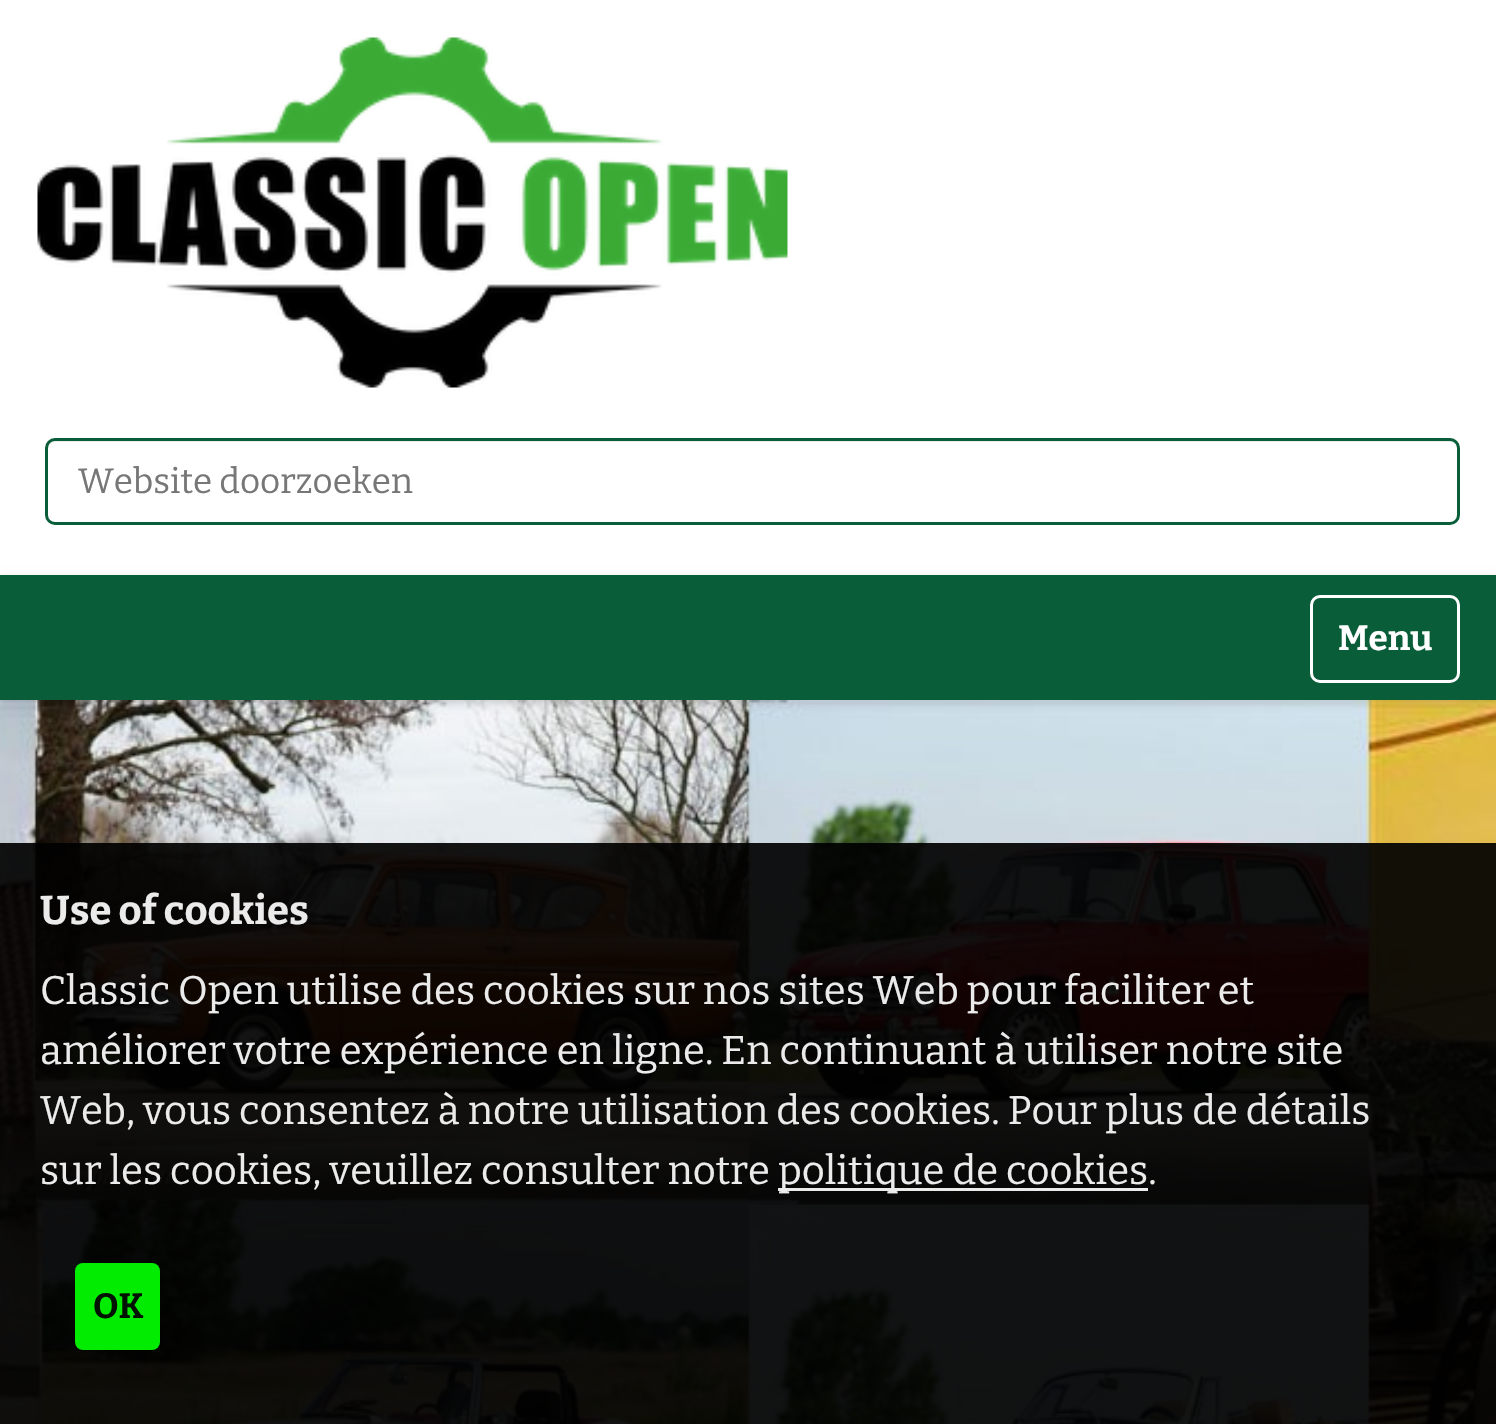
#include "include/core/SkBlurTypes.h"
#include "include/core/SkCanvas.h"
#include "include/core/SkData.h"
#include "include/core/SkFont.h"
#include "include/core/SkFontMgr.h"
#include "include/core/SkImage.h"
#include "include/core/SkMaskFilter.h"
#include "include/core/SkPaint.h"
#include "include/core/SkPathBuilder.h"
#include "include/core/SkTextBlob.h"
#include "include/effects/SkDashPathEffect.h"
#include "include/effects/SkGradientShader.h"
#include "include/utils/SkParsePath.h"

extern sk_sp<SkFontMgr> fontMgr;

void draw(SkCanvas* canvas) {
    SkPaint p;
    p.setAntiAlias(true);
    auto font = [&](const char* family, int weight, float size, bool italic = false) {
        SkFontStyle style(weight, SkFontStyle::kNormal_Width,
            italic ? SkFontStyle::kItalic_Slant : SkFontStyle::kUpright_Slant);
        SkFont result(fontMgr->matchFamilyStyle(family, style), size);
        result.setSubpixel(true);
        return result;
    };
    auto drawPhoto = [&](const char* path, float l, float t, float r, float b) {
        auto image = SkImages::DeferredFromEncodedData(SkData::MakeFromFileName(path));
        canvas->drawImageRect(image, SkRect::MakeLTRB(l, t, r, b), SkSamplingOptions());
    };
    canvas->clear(0xFFFFFFFF);
    drawPhoto("media/1.png", 37, 37, 788, 388);
    p.setColor(0xFFECECEC);
    canvas->drawPath(SkPathBuilder().moveTo(55, 442).lineTo(1450, 442).cubicTo(1454, 442, 1458, 446, 1458, 450).lineTo(1458, 448).cubicTo(1458, 444, 1454, 440, 1450, 440).lineTo(56, 440).cubicTo(52, 440, 48, 444, 48, 448).lineTo(48, 450).cubicTo(48, 446, 51, 442, 55, 442).close().detach(), p);
    p.setStyle(SkPaint::kStroke_Style);
    p.setStrokeWidth(3);
    p.setColor(0xFF095D38);
    canvas->drawRoundRect(SkRect::MakeLTRB(46.5f, 439.5f, 1458.5f, 523.5f), 8.5f, 8.5f, p);
    canvas->save();
    canvas->clipRect(SkRect::MakeLTRB(78, 460, 1428, 503));
    auto font1 = font("Bitter", 400, 35);
    p.setStyle(SkPaint::kFill_Style);
    p.setColor(0xFF777777);
    canvas->drawString("Website doorzoeken", 78, 493, font1, p);
    canvas->restore();
    drawPhoto("media/2.png", 0, 700, 1496, 1424);
    p.setColor(0x2B000000);
    p.setMaskFilter(SkMaskFilter::MakeBlur(kNormal_SkBlurStyle, 4));
    canvas->drawRect(SkRect::MakeLTRB(0, 578, 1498, 703), p);
    p.setMaskFilter(nullptr);
    p.setColor(0xFF095D38);
    canvas->drawRect(SkRect::MakeLTRB(0, 575, 1496, 700), p);
    p.setStyle(SkPaint::kStroke_Style);
    p.setColor(0xFFFFFFFF);
    canvas->drawRoundRect(SkRect::MakeLTRB(1311.5f, 596.5f, 1458.5f, 681.5f), 8.5f, 8.5f, p);
    auto font2 = font("Bitter", 700, 35);
    p.setStyle(SkPaint::kFill_Style);
    canvas->drawString("Menu", 1338, 650, font2, p);
    p.setColor(0xEB000000);
    canvas->drawRect(SkRect::MakeLTRB(0, 843, 1496, 1424), p);
    auto font3 = font("Bitter", 700, 40);
    p.setColor(0xFFEBEBEB);
    canvas->drawString("Use of cookies", 40, 924, font3, p);
    auto font4 = font("Bitter", 400, 40);
    {
        const struct { const char* s; float x, y; } items[] = {
            {"Classic Open utilise des cookies sur nos sites Web pour faciliter et", 40, 1004},
            {"améliorer votre expérience en ligne. En continuant à utiliser notre site", 40, 1064},
            {"Web, vous consentez à notre utilisation des cookies. Pour plus de détails", 40, 1124},
            {"sur les cookies, veuillez consulter notre", 40, 1184},
        };
        for (auto [s, x, y] : items) {
            canvas->drawString(s, x, y, font4, p);
        }
    }
    canvas->drawRect(SkRect::MakeLTRB(778, 1188, 1148, 1191), p);
    canvas->drawString("politique de cookies.", 778, 1184, font4, p);
    p.setColor(0xEB00FF00);
    canvas->drawRoundRect(SkRect::MakeLTRB(75, 1263, 160, 1350), 8, 8, p);
    p.setColor(0xFF001300);
    canvas->drawString("OK", 93, 1318, font2, p);
}
